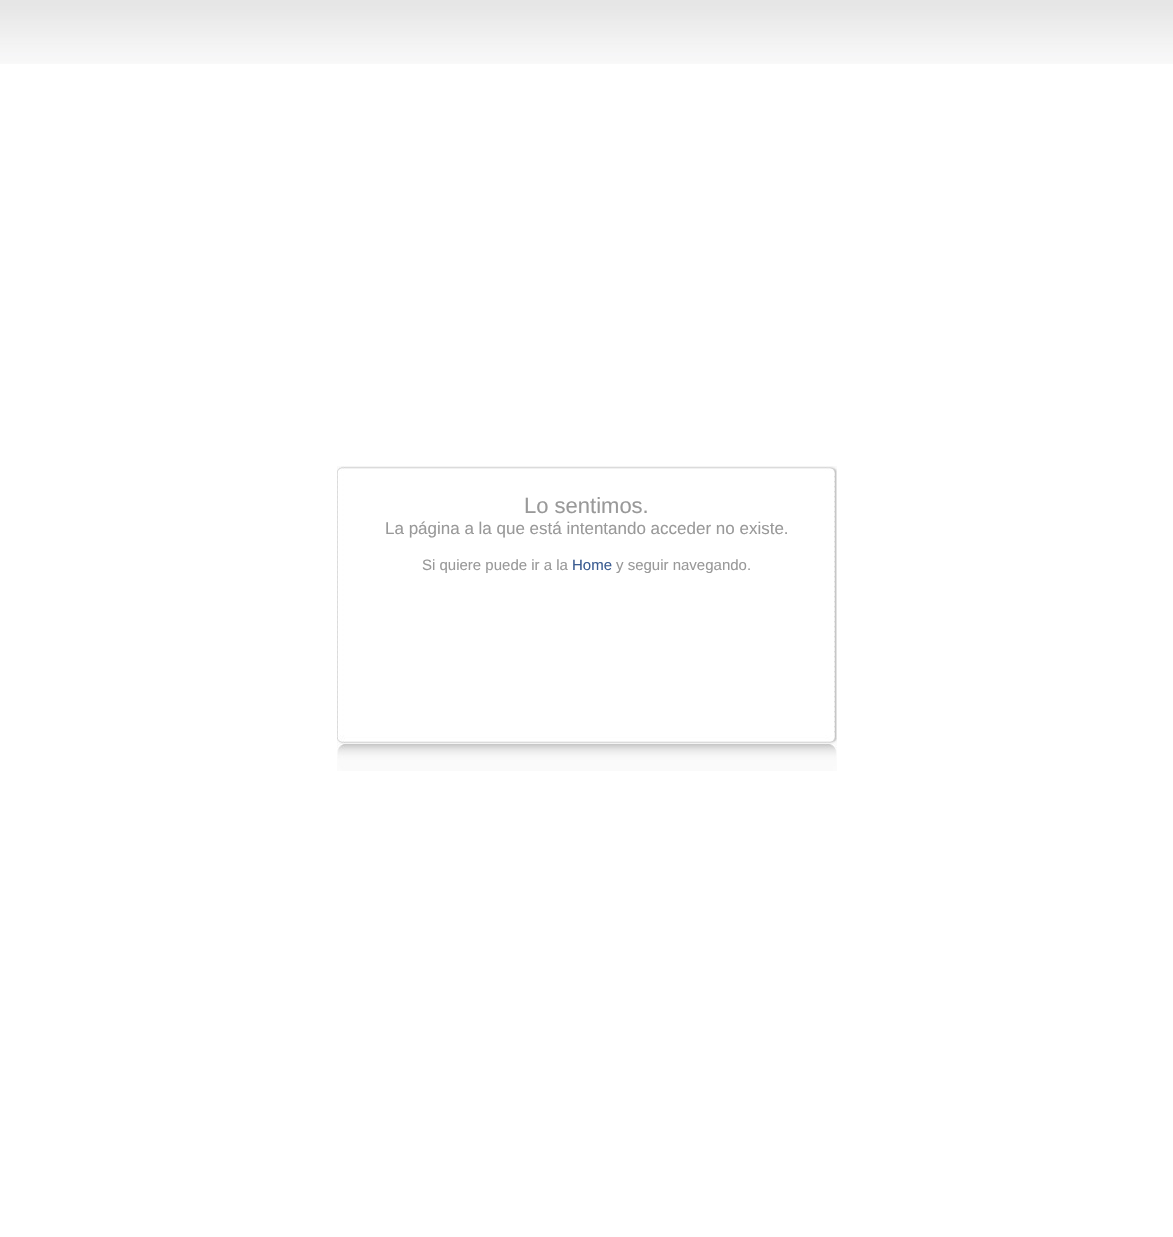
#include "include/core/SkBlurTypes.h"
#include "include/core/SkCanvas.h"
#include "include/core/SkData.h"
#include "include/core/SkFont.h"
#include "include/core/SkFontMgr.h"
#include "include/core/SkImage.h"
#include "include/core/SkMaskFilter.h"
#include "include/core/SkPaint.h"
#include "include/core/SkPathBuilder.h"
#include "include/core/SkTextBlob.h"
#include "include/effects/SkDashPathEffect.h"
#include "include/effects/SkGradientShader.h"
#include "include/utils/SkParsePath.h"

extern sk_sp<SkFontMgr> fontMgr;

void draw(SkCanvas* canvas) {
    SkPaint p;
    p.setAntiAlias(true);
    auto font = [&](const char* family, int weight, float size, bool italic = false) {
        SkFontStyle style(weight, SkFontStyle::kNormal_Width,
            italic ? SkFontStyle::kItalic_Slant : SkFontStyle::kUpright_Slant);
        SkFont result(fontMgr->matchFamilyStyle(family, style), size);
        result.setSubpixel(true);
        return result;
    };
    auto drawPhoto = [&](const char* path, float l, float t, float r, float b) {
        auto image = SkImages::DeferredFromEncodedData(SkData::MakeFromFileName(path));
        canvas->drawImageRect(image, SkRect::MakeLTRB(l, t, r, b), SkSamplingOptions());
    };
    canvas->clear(0xFFFFFFFF);
    drawPhoto("media/1.png", 0, 0, 1173, 64);
    drawPhoto("media/2.png", 337, 471, 837, 735);
    drawPhoto("media/3.png", 337, 466, 837, 471);
    auto font1 = font("Liberation Sans", 400, 22);
    p.setColor(0xFF999999);
    canvas->drawString("Lo sentimos.", 524, 513, font1, p);
    auto font2 = font("Liberation Sans", 400, 17);
    canvas->drawString("La página a la que está intentando acceder no existe.", 385, 534, font2, p);
    auto font3 = font("Liberation Sans", 400, 15);
    canvas->drawString("Si quiere puede ir a la", 422, 570, font3, p);
    p.setColor(0xFF3C5D92);
    canvas->drawString("Home", 572, 570, font3, p);
    p.setColor(0xFF999999);
    canvas->drawString("y seguir navegando.", 616, 570, font3, p);
    drawPhoto("media/4.png", 337, 735, 837, 771);
}
